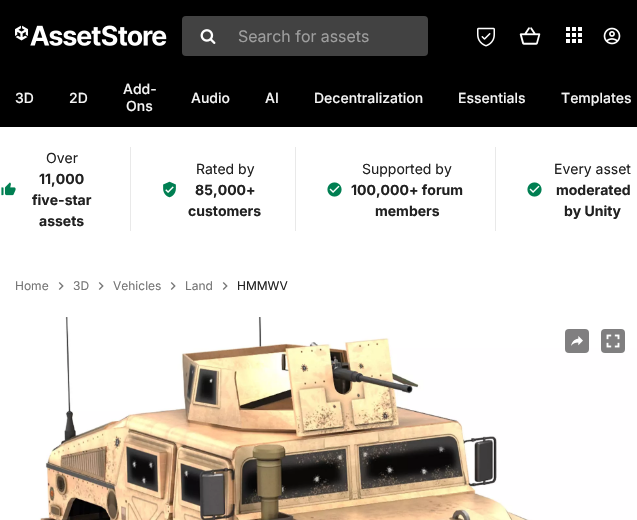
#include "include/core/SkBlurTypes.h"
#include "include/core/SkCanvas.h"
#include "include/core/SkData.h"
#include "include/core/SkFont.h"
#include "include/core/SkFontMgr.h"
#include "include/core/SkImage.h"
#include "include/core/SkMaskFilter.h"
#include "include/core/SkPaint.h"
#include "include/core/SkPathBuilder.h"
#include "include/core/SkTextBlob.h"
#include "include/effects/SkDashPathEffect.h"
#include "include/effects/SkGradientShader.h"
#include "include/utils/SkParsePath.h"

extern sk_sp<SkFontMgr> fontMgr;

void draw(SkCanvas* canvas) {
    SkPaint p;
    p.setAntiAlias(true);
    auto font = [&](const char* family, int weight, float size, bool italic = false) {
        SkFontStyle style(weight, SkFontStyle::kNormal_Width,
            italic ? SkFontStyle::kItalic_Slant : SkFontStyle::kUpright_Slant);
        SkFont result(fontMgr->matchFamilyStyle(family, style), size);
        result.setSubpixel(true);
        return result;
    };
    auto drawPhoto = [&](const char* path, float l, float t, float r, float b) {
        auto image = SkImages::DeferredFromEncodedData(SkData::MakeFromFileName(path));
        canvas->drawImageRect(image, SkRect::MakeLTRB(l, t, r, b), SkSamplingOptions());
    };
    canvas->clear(0xFFFFFFFF);
    p.setColor(0xFF000000);
    canvas->drawRect(SkRect::MakeLTRB(0, 0, 637, 127), p);
    drawPhoto("media/1.png", 15, 25, 167, 46);
    p.setColor(0xFF424242);
    canvas->drawRoundRect(SkRect::MakeLTRB(182, 16, 428, 56), 4, 4, p);
    drawPhoto("media/2.png", 200, 29, 216, 44);
    auto font1 = font("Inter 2", 400, 16);
    p.setColor(0xFF9E9E9E);
    canvas->drawString("Search for assets", 238, 42, font1, p);
    drawPhoto("media/3.png", 477, 27, 495, 47);
    drawPhoto("media/4.png", 519, 27, 541, 45);
    drawPhoto("media/5.png", 566, 27, 582, 43);
    drawPhoto("media/6.png", 603, 27, 621, 45);
    auto font2 = font("Inter", 500, 14);
    p.setColor(0xFFF5F5F5);
    {
        const struct { const char* s; float x, y; } items[] = {
            {"3D", 15, 103},
            {"2D", 69, 103},
            {"Add-", 123, 94},
            {"Ons", 126, 111},
            {"Audio", 191, 103},
            {"AI", 265, 103},
            {"Decentralization", 314, 103},
            {"Essentials", 458, 103},
            {"Templates", 561, 103},
        };
        for (auto [s, x, y] : items) {
            canvas->drawString(s, x, y, font2, p);
        }
    }
    drawPhoto("media/7.png", 1, 182, 16, 196);
    auto font3 = font("Inter", 400, 14);
    p.setColor(0xFF212121);
    canvas->drawString("Over", 46, 163, font3, p);
    auto font4 = font("Inter", 700, 14);
    {
        const struct { const char* s; float x, y; } items[] = {
            {"11,000", 39, 184},
            {"five-star", 32, 205},
            {"assets", 39, 226},
        };
        for (auto [s, x, y] : items) {
            canvas->drawString(s, x, y, font4, p);
        }
    }
    p.setColor(0xFFE9E9E9);
    canvas->drawRect(SkRect::MakeLTRB(295, 147, 296, 231), p);
    canvas->drawRect(SkRect::MakeLTRB(130, 147, 131, 231), p);
    drawPhoto("media/8.png", 163, 181, 176, 198);
    p.setColor(0xFF212121);
    canvas->drawString("Rated by", 196, 174, font3, p);
    canvas->drawString("85,000+", 195, 195, font4, p);
    canvas->drawString("customers", 188, 216, font4, p);
    p.setColor(0xFFE9E9E9);
    canvas->drawRect(SkRect::MakeLTRB(495, 147, 496, 231), p);
    drawPhoto("media/9.png", 327, 182, 342, 197);
    p.setColor(0xFF212121);
    canvas->drawString("Supported by", 362, 174, font3, p);
    canvas->drawString("100,000+ forum", 351, 195, font4, p);
    canvas->drawString("members", 375, 216, font4, p);
    drawPhoto("media/9.png", 527, 182, 542, 197);
    canvas->drawString("Every asset", 554, 174, font3, p);
    canvas->drawString("moderated", 556, 195, font4, p);
    canvas->drawString("by Unity", 564, 216, font4, p);
    auto font5 = font("Inter", 400, 12);
    p.setColor(0xFF757575);
    canvas->drawString("Home", 15, 290, font5, p);
    drawPhoto("media/10.png", 58, 282, 64, 290);
    canvas->drawString("3D", 73, 290, font5, p);
    drawPhoto("media/10.png", 98, 282, 104, 290);
    canvas->drawString("Vehicles", 113, 290, font5, p);
    drawPhoto("media/10.png", 170, 282, 176, 290);
    canvas->drawString("Land", 185, 290, font5, p);
    drawPhoto("media/10.png", 222, 282, 228, 290);
    p.setColor(0xFF212121);
    canvas->drawString("HMMWV", 237, 290, font5, p);
    drawPhoto("media/11.png", 0, 317, 637, 520);
    p.setColor(0xFF807F80);
    canvas->drawRoundRect(SkRect::MakeLTRB(565, 329, 589, 353), 4, 4, p);
    drawPhoto("media/12.png", 571, 336, 583, 346);
    canvas->drawRoundRect(SkRect::MakeLTRB(601, 329, 625, 353), 4, 4, p);
    drawPhoto("media/13.png", 606, 334, 620, 348);
}
